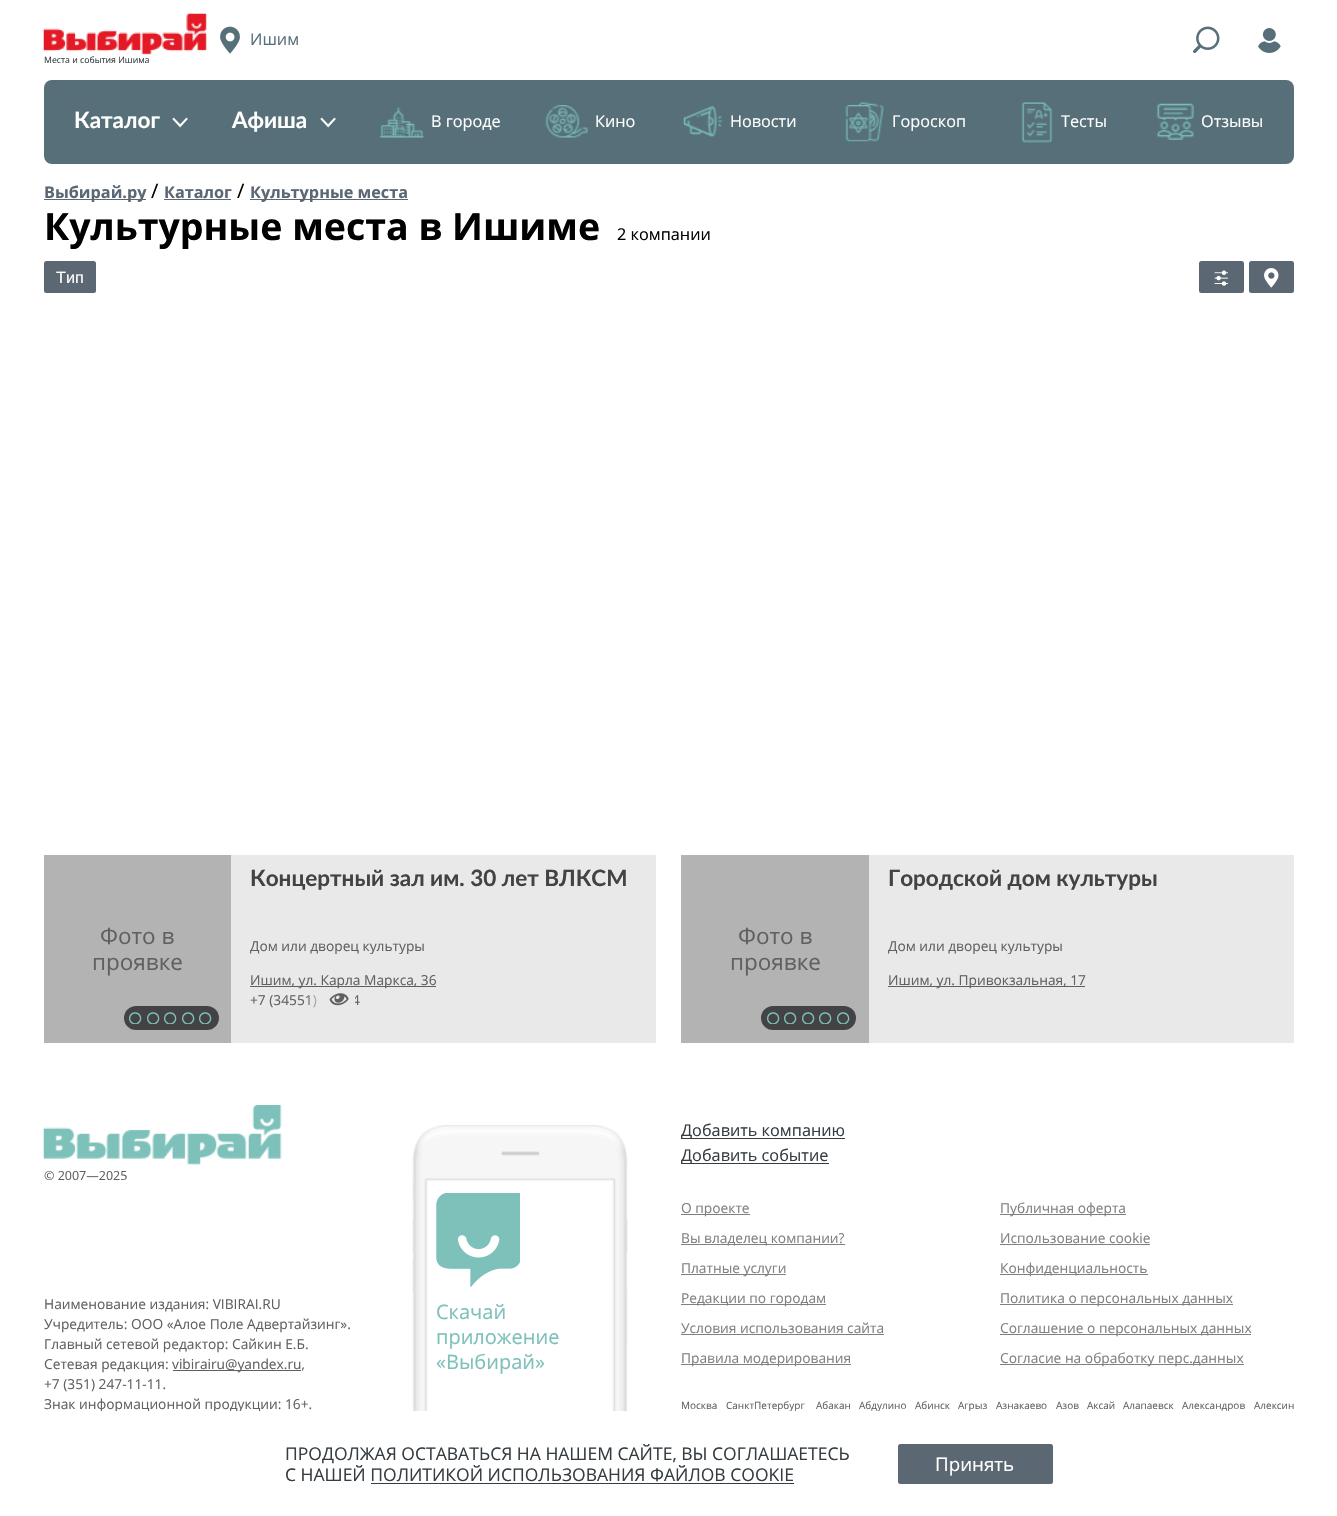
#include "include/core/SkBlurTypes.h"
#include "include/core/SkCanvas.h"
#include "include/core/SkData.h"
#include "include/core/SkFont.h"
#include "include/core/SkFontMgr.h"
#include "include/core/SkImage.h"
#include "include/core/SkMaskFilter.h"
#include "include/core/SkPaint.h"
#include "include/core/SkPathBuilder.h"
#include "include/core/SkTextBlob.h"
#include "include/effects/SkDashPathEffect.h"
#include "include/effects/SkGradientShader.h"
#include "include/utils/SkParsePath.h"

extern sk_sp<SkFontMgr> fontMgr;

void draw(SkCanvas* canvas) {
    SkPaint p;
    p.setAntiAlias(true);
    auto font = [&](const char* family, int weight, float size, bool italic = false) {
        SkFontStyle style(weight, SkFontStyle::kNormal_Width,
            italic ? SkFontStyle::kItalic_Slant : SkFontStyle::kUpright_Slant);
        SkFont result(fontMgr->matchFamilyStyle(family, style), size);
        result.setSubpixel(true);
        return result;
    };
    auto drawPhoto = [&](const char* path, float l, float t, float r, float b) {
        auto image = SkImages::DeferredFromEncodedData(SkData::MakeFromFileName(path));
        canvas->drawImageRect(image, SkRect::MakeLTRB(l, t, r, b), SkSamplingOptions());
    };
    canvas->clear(0xFFFFFFFF);
    drawPhoto("media/1.png", 220, 26, 240, 54);
    auto font1 = font("Open Sans", 400, 16.25f);
    p.setColor(0xFF566F79);
    canvas->drawString("Ишим", 250, 45, font1, p);
    drawPhoto("media/2.png", 1193, 26, 1220, 54);
    drawPhoto("media/3.png", 1258, 28, 1281, 53);
    drawPhoto("media/4.png", 43, 13, 207, 55);
    auto font2 = font("Open Sans", 400, 8.75f);
    p.setColor(0xFF353D42);
    canvas->drawString("Места и события Ишима", 44, 63, font2, p);
    p.setColor(0xFF566F79);
    canvas->drawRoundRect(SkRect::MakeLTRB(44, 80, 1294, 164), 8, 8, p);
    auto font3 = font("Lato", 700, 22.5f);
    p.setColor(0xFFFFFFFF);
    canvas->drawString("Каталог", 74, 128, font3, p);
    auto font4 = font("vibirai", 400, 16.25f);
    canvas->drawString("↓", 172, 128, font4, p);
    canvas->drawString("Афиша", 232, 128, font3, p);
    canvas->drawString("↓", 320, 128, font4, p);
    drawPhoto("media/5.png", 379, 107, 424, 138);
    canvas->drawString("В городе", 431, 127, font1, p);
    drawPhoto("media/6.png", 545, 105, 588, 138);
    canvas->drawString("Кино", 595, 127, font1, p);
    drawPhoto("media/7.png", 683, 106, 723, 137);
    canvas->drawString("Новости", 730, 127, font1, p);
    drawPhoto("media/8.png", 845, 102, 884, 142);
    canvas->drawString("Гороскоп", 892, 127, font1, p);
    drawPhoto("media/9.png", 1021, 102, 1053, 143);
    canvas->drawString("Тесты", 1061, 127, font1, p);
    drawPhoto("media/10.png", 1156, 103, 1194, 140);
    canvas->drawString("Отзывы", 1201, 127, font1, p);
    p.setColor(0xFF5B6772);
    canvas->drawRect(SkRect::MakeLTRB(44, 199, 146, 200), p);
    auto font5 = font("Open Sans", 700, 16.25f);
    canvas->drawString("Выбирай.ру", 44, 198, font5, p);
    auto font6 = font("Open Sans", 400, 20);
    p.setColor(0xFF000000);
    canvas->drawString("/", 151, 198, font6, p);
    p.setColor(0xFF5B6772);
    canvas->drawString("Каталог", 164, 198, font5, p);
    canvas->drawRect(SkRect::MakeLTRB(164, 199, 231, 200), p);
    p.setColor(0xFF000000);
    canvas->drawString("/", 237, 198, font6, p);
    p.setColor(0xFF5B6772);
    canvas->drawRect(SkRect::MakeLTRB(250, 199, 408, 200), p);
    canvas->drawString("Культурные места", 250, 198, font5, p);
    auto font7 = font("Open Sans", 700, 37.5f);
    p.setColor(0xFF000000);
    canvas->drawString("Культурные места в Ишиме", 44, 240, font7, p);
    canvas->drawString("2 компании", 617, 240, font1, p);
    p.setColor(0xFF5B6772);
    canvas->drawRoundRect(SkRect::MakeLTRB(44, 261, 96, 293), 2.5f, 2.5f, p);
    auto font8 = font("Liberation Sans", 400, 16.25f);
    p.setColor(0xFFFFFFFF);
    canvas->drawString("Тип", 56, 283, font8, p);
    p.setColor(0xFF5B6772);
    canvas->drawRoundRect(SkRect::MakeLTRB(1199, 261, 1244, 293), 2.5f, 2.5f, p);
    drawPhoto("media/11.png", 1214, 270, 1228, 286);
    canvas->drawRoundRect(SkRect::MakeLTRB(1249, 261, 1294, 293), 2.5f, 2.5f, p);
    drawPhoto("media/12.png", 1264, 268, 1279, 288);
    p.setColor(0xFFE9E9E9);
    canvas->drawRect(SkRect::MakeLTRB(231, 855, 656, 1043), p);
    p.setColor(0xFFB3B3B3);
    canvas->drawRect(SkRect::MakeLTRB(44, 855, 231, 1043), p);
    auto font9 = font("Open Sans", 400, 22.5f);
    p.setColor(0xFF606060);
    canvas->drawString("Фото в", 100, 944, font9, p);
    canvas->drawString("проявке", 92, 970, font9, p);
    p.setColor(0xFF434244);
    canvas->drawString("Концертный зал им. 30 лет ВЛКСМ", 250, 886, font3, p);
    canvas->save();
    canvas->clipRect(SkRect::MakeLTRB(250, 938, 638, 954));
    auto font10 = font("Open Sans", 400, 13.75f);
    p.setColor(0xFF606060);
    canvas->drawString("Дом или дворец культуры", 250, 951, font10, p);
    canvas->restore();
    canvas->drawRect(SkRect::MakeLTRB(250, 986, 436, 987), p);
    {
        const struct { const char* s; float x, y; } items[] = {
            {"Ишим, ул. Карла Маркса, 36", 250, 985},
            {"+7 (34551)", 250, 1005},
            {"4", 352, 1005},
        };
        for (auto [s, x, y] : items) {
            canvas->drawString(s, x, y, font10, p);
        }
    }
    {
        const SkColor colors[] = {0x00E9E9E9, 0xFFE9E9E9};
        const float stops[] = {0, 0.38f};
        const SkPoint ends[] = {{306, 1000}, {355, 1000}};
        p.setShader(SkGradientShader::MakeLinear(ends, colors, stops, 2, SkTileMode::kClamp));
        p.setAlpha(255);
    }
    canvas->drawRect(SkRect::MakeLTRB(307, 995, 355, 1008), p);
    drawPhoto("media/13.png", 329, 993, 349, 1006);
    p.setShader(nullptr);
    p.setColor(0xFF434244);
    canvas->drawRoundRect(SkRect::MakeLTRB(124, 1006, 219, 1030), 12, 12, p);
    canvas->save();
    canvas->clipRect(SkRect::MakeLTRB(129, 1010, 143, 1024));
    p.setColor(0xFF7DC1BA);
    canvas->drawString("○", 127, 1024, font4, p);
    canvas->restore();
    canvas->save();
    canvas->clipRect(SkRect::MakeLTRB(146, 1010, 160, 1024));
    canvas->drawString("○", 145, 1024, font4, p);
    canvas->restore();
    canvas->save();
    canvas->clipRect(SkRect::MakeLTRB(164, 1010, 178, 1024));
    canvas->drawString("○", 162, 1024, font4, p);
    canvas->restore();
    canvas->save();
    canvas->clipRect(SkRect::MakeLTRB(181, 1010, 195, 1024));
    canvas->drawString("○", 180, 1024, font4, p);
    canvas->restore();
    canvas->save();
    canvas->clipRect(SkRect::MakeLTRB(199, 1010, 213, 1024));
    canvas->drawString("○", 197, 1024, font4, p);
    canvas->restore();
    p.setColor(0xFFE9E9E9);
    canvas->drawRect(SkRect::MakeLTRB(869, 855, 1294, 1043), p);
    p.setColor(0xFFB3B3B3);
    canvas->drawRect(SkRect::MakeLTRB(681, 855, 869, 1043), p);
    p.setColor(0xFF606060);
    canvas->drawString("Фото в", 738, 944, font9, p);
    canvas->drawString("проявке", 730, 970, font9, p);
    p.setColor(0xFF434244);
    canvas->drawString("Городской дом культуры", 888, 886, font3, p);
    canvas->save();
    canvas->clipRect(SkRect::MakeLTRB(888, 938, 1275, 954));
    p.setColor(0xFF606060);
    canvas->drawString("Дом или дворец культуры", 888, 951, font10, p);
    canvas->restore();
    canvas->drawRect(SkRect::MakeLTRB(888, 986, 1085, 987), p);
    canvas->drawString("Ишим, ул. Привокзальная, 17", 888, 985, font10, p);
    p.setColor(0xFF434244);
    canvas->drawRoundRect(SkRect::MakeLTRB(761, 1006, 856, 1030), 12, 12, p);
    canvas->save();
    canvas->clipRect(SkRect::MakeLTRB(766, 1010, 780, 1024));
    p.setColor(0xFF7DC1BA);
    canvas->drawString("○", 765, 1024, font4, p);
    canvas->restore();
    canvas->save();
    canvas->clipRect(SkRect::MakeLTRB(784, 1010, 798, 1024));
    canvas->drawString("○", 782, 1024, font4, p);
    canvas->restore();
    canvas->save();
    canvas->clipRect(SkRect::MakeLTRB(801, 1010, 815, 1024));
    canvas->drawString("○", 800, 1024, font4, p);
    canvas->restore();
    canvas->save();
    canvas->clipRect(SkRect::MakeLTRB(819, 1010, 833, 1024));
    canvas->drawString("○", 817, 1024, font4, p);
    canvas->restore();
    canvas->save();
    canvas->clipRect(SkRect::MakeLTRB(836, 1010, 850, 1024));
    canvas->drawString("○", 835, 1024, font4, p);
    canvas->restore();
    drawPhoto("media/14.png", 43, 1105, 282, 1165);
    auto font11 = font("Open Sans", 400, 12.5f);
    p.setColor(0xFF606060);
    canvas->drawString("© 2007—2025", 44, 1180, font11, p);
    {
        const struct { const char* s; float x, y; } items[] = {
            {"Наименование издания: VIBIRAI.RU", 44, 1309},
            {"Учредитель: ООО «Алое Поле Адвертайзинг».", 44, 1329},
            {"Главный сетевой редактор: Сайкин Е.Б.", 44, 1349},
            {"Сетевая редакция:", 44, 1369},
        };
        for (auto [s, x, y] : items) {
            canvas->drawString(s, x, y, font10, p);
        }
    }
    canvas->drawRect(SkRect::MakeLTRB(173, 1370, 301, 1371), p);
    {
        const struct { const char* s; float x, y; } items[] = {
            {"vibirairu@yandex.ru,", 172, 1369},
            {"+7 (351) 247-11-11.", 44, 1389},
            {"Знак информационной продукции: 16+.", 44, 1409},
        };
        for (auto [s, x, y] : items) {
            canvas->drawString(s, x, y, font10, p);
        }
    }
    drawPhoto("media/15.png", 412, 1125, 628, 1411);
    drawPhoto("media/16.png", 436, 1193, 520, 1288);
    p.setColor(0xFF7DC1BA);
    {
        const struct { const char* s; float x, y; } items[] = {
            {"Скачай", 436, 1319},
            {"приложение", 436, 1344},
            {"«Выбирай»", 436, 1369},
        };
        for (auto [s, x, y] : items) {
            canvas->drawString(s, x, y, font6, p);
        }
    }
    p.setColor(0xFF353D42);
    canvas->drawRect(SkRect::MakeLTRB(681, 1138, 845, 1139), p);
    canvas->drawString("Добавить компанию", 681, 1136, font1, p);
    canvas->drawRect(SkRect::MakeLTRB(681, 1163, 829, 1164), p);
    canvas->drawString("Добавить событие", 681, 1161, font1, p);
    p.setColor(0xFF808080);
    canvas->drawRect(SkRect::MakeLTRB(681, 1214, 750, 1215), p);
    canvas->drawString("О проекте", 681, 1213, font10, p);
    canvas->drawRect(SkRect::MakeLTRB(681, 1244, 845, 1245), p);
    canvas->drawString("Вы владелец компании?", 681, 1243, font10, p);
    canvas->drawRect(SkRect::MakeLTRB(681, 1274, 786, 1275), p);
    canvas->drawString("Платные услуги", 681, 1273, font10, p);
    canvas->drawRect(SkRect::MakeLTRB(681, 1304, 826, 1305), p);
    canvas->drawString("Редакции по городам", 681, 1303, font10, p);
    canvas->drawString("Условия использования сайта", 681, 1333, font10, p);
    canvas->drawRect(SkRect::MakeLTRB(681, 1334, 884, 1335), p);
    canvas->drawRect(SkRect::MakeLTRB(681, 1364, 851, 1365), p);
    canvas->drawString("Правила модерирования", 681, 1363, font10, p);
    canvas->drawRect(SkRect::MakeLTRB(1000, 1214, 1126, 1215), p);
    canvas->drawString("Публичная оферта", 1000, 1213, font10, p);
    canvas->drawString("Использование cookie", 1000, 1243, font10, p);
    canvas->drawRect(SkRect::MakeLTRB(1000, 1244, 1150, 1245), p);
    canvas->drawRect(SkRect::MakeLTRB(1000, 1274, 1148, 1275), p);
    canvas->drawString("Конфиденциальность", 1000, 1273, font10, p);
    canvas->drawRect(SkRect::MakeLTRB(1000, 1304, 1233, 1305), p);
    canvas->drawString("Политика о персональных данных", 1000, 1303, font10, p);
    canvas->drawRect(SkRect::MakeLTRB(1000, 1334, 1251, 1335), p);
    canvas->drawString("Соглашение о персональных данных", 1000, 1333, font10, p);
    canvas->drawRect(SkRect::MakeLTRB(1000, 1364, 1244, 1365), p);
    canvas->drawString("Согласие на обработку перс.данных", 1000, 1363, font10, p);
    auto font12 = font("Open Sans", 400, 10);
    p.setColor(0xFF606060);
    {
        const struct { const char* s; float x, y; } items[] = {
            {"Москва", 681, 1409},
            {"Санкт‑Петербург", 726, 1409},
            {"Абакан", 816, 1409},
            {"Абдулино", 859, 1409},
            {"Абинск", 915, 1409},
            {"Агрыз", 958, 1409},
            {"Азнакаево", 996, 1409},
            {"Азов", 1056, 1409},
            {"Аксай", 1087, 1409},
            {"Алапаевск", 1123, 1409},
            {"Александров", 1182, 1409},
            {"Алексин", 1254, 1409},
        };
        for (auto [s, x, y] : items) {
            canvas->drawString(s, x, y, font12, p);
        }
    }
    p.setColor(0xFFFFFFFF);
    canvas->drawRect(SkRect::MakeLTRB(100, 1411, 1229, 1413), p);
    auto font13 = font("Open Sans", 400, 17.5f);
    p.setColor(0xFF353D42);
    canvas->drawString("ПРОДОЛЖАЯ ОСТАВАТЬСЯ НА НАШЕМ САЙТЕ, ВЫ СОГЛАШАЕТЕСЬ", 285, 1460, font13, p);
    canvas->drawString("С НАШЕЙ ПОЛИТИКОЙ ИСПОЛЬЗОВАНИЯ ФАЙЛОВ COOKIE", 285, 1481, font13, p);
    canvas->drawRect(SkRect::MakeLTRB(371, 1483, 794, 1484), p);
    p.setColor(0xFF5B6772);
    canvas->drawRoundRect(SkRect::MakeLTRB(898, 1444, 1053, 1484), 2.5f, 2.5f, p);
    auto font14 = font("Open Sans", 400, 18.75f);
    p.setColor(0xFFFFFFFF);
    canvas->drawString("Принять", 935, 1471, font14, p);
}
